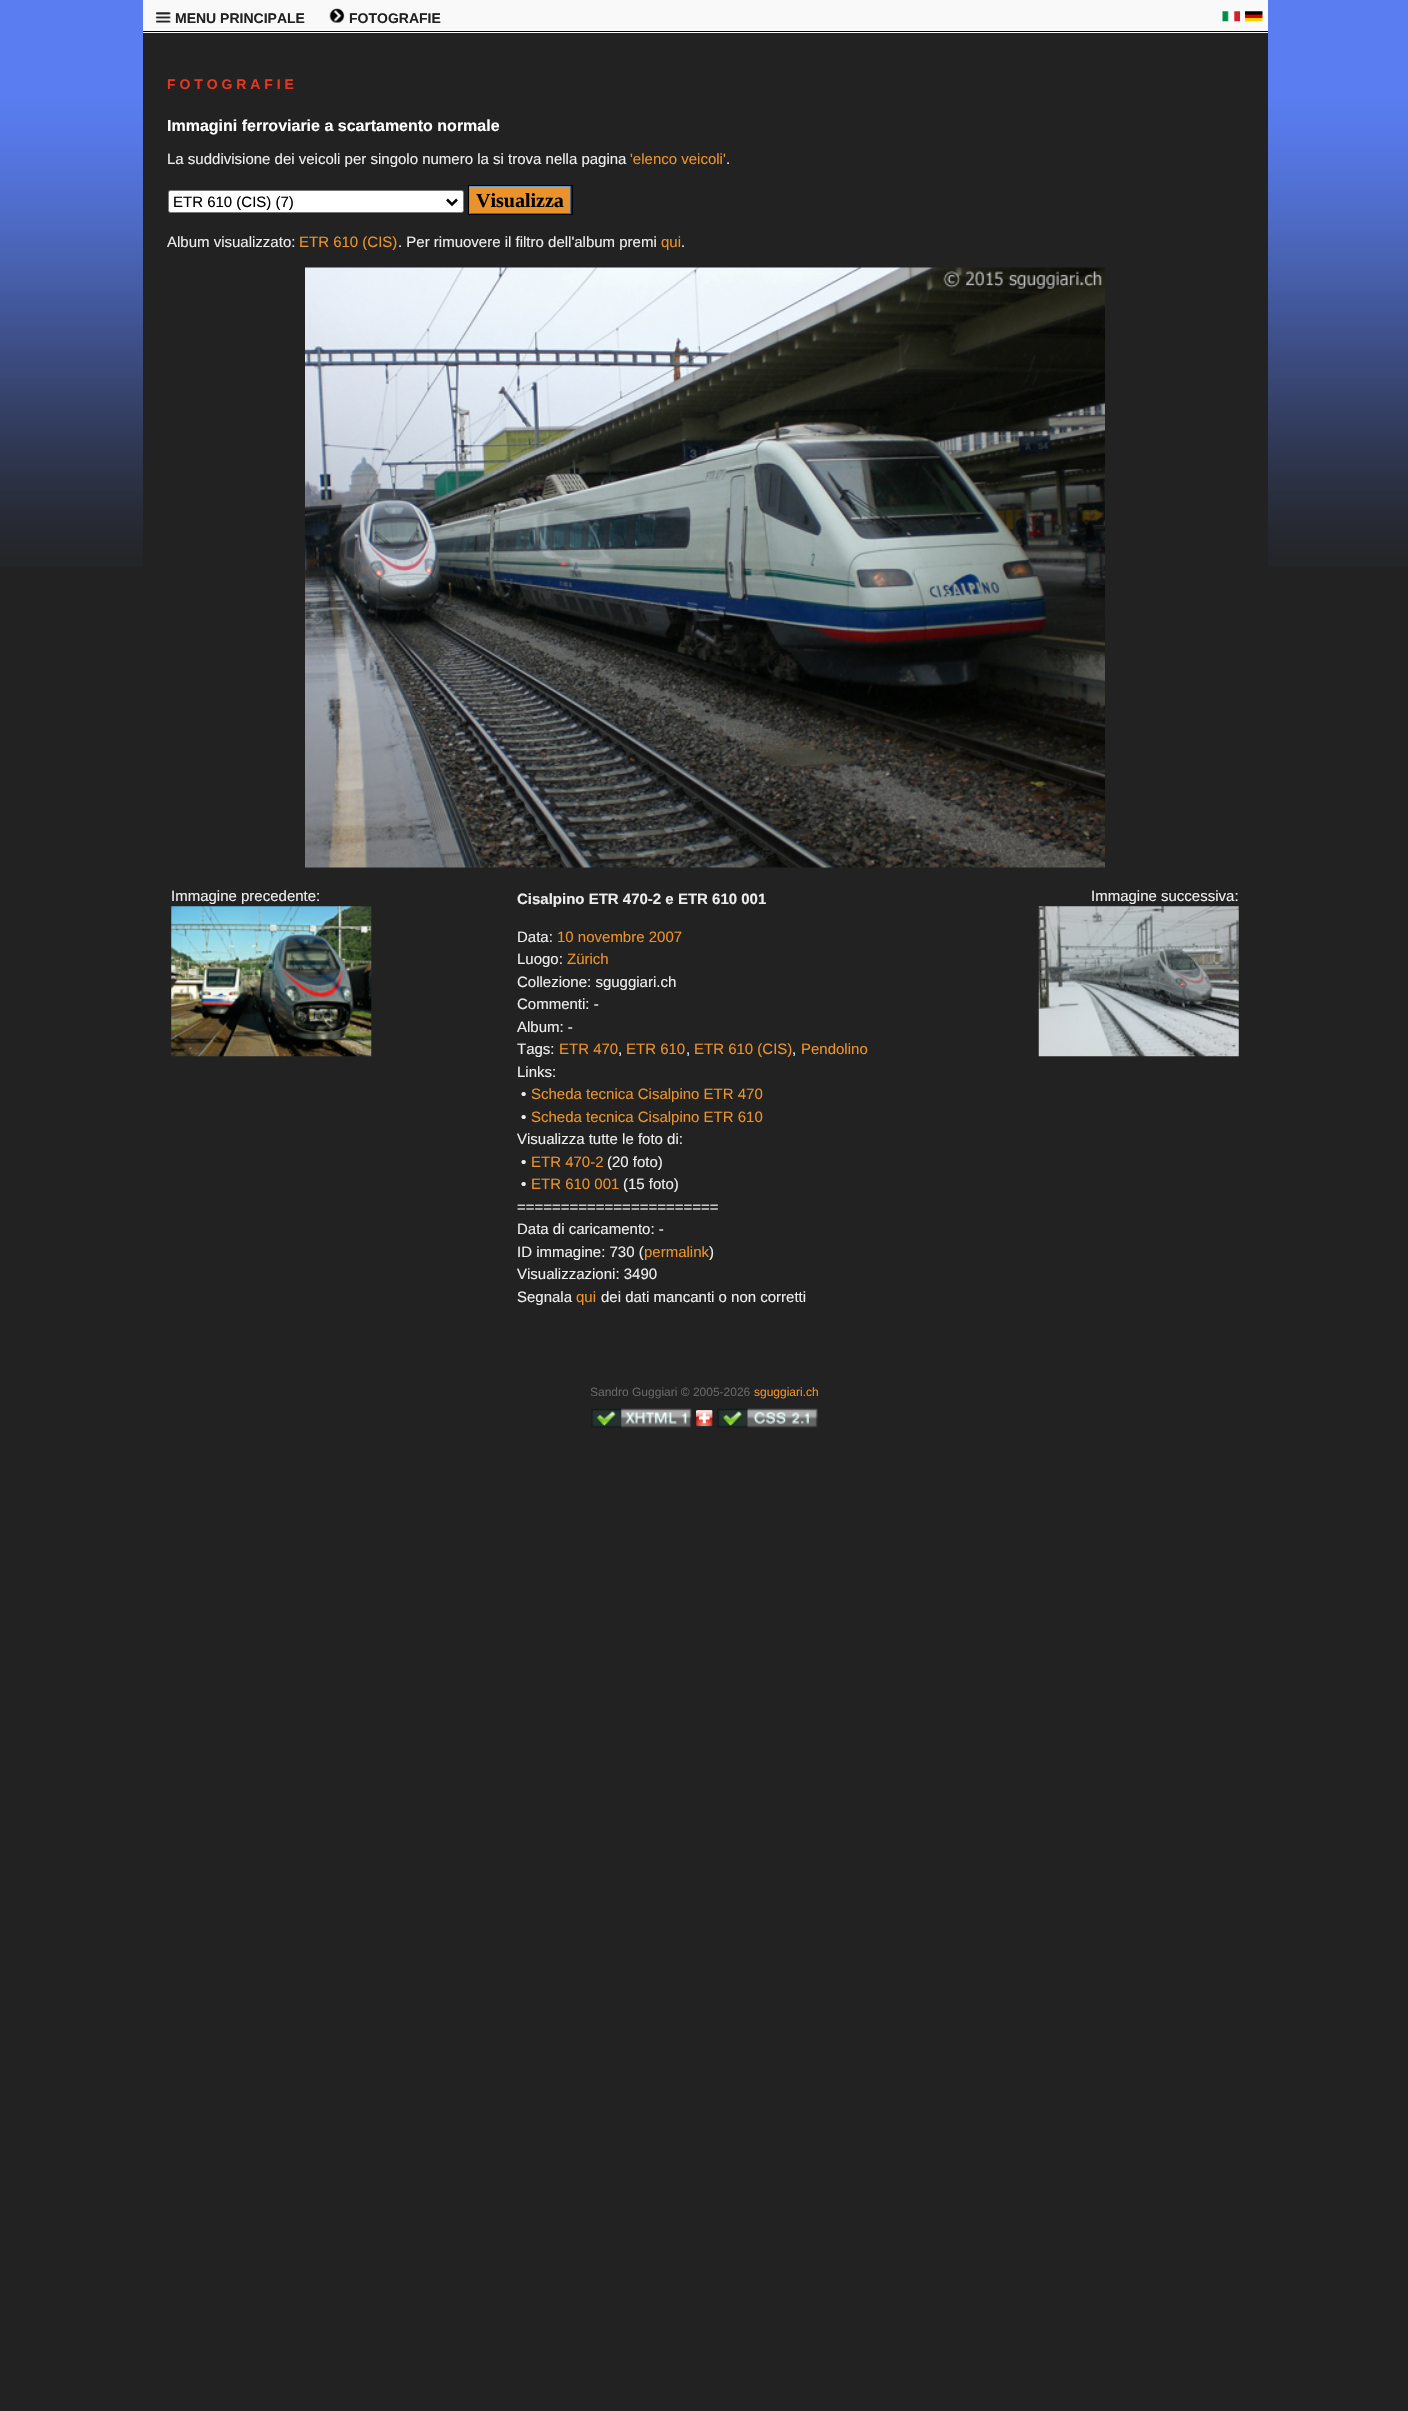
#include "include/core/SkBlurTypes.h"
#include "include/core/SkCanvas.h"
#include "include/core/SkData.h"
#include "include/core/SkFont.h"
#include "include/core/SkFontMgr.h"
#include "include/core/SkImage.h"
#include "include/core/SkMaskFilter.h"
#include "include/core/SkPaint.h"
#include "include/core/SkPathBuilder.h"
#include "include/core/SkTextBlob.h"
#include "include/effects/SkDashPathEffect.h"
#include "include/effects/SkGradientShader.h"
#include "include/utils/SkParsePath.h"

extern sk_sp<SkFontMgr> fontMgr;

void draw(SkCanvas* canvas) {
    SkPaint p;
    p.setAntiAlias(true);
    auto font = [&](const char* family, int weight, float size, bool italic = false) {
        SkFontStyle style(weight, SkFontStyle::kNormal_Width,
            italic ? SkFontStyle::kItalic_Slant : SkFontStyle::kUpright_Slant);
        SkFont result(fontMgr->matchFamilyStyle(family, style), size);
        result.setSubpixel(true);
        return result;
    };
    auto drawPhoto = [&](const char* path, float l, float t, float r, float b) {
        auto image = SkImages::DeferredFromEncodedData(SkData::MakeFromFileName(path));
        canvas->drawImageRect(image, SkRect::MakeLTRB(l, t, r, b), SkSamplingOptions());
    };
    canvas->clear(0xFF222222);
    drawPhoto("media/1.png", 0, 0, 1408, 567);
    {
        const struct { float l, t, r, b; SkColor color; } items[] = {
            {143, 33, 1268, 567, 0xFF222222},
            {143, 0, 1268, 33, 0xFFF9F9F9},
            {143, 31, 1268, 32, 0xFF000000},
        };
        for (auto [l, t, r, b, color] : items) {
            p.setColor(color);
            canvas->drawRect(SkRect::MakeLTRB(l, t, r, b), p);
        }
    }
    drawPhoto("media/2.png", 155, 12, 171, 23);
    auto font1 = font("Liberation Sans", 700, 14);
    p.setColor(0xFF222222);
    canvas->drawString("MENU PRINCIPALE", 175, 23, font1, p);
    drawPhoto("media/3.png", 329, 8, 345, 23);
    canvas->drawString("FOTOGRAFIE", 349, 23, font1, p);
    drawPhoto("media/4.png", 1222, 11, 1240, 22);
    drawPhoto("media/5.png", 1245, 11, 1263, 22);
    p.setColor(0xFFE6361F);
    canvas->drawString("F O T O G R A F I E", 167, 89, font1, p);
    auto font2 = font("Liberation Sans", 700, 16);
    p.setColor(0xFFFFFFFF);
    canvas->drawString("Immagini ferroviarie a scartamento normale", 167, 131, font2, p);
    auto font3 = font("Liberation Sans", 400, 15);
    p.setColor(0xFFECECEC);
    canvas->drawString("La suddivisione dei veicoli per singolo numero la si trova nella pagina", 167, 164, font3, p);
    p.setColor(0xFFEA922B);
    canvas->drawString("'elenco veicoli'", 630, 164, font3, p);
    p.setColor(0xFFECECEC);
    canvas->drawString(".", 726, 164, font3, p);
    p.setColor(0xFFFFFFFF);
    canvas->drawRoundRect(SkRect::MakeLTRB(168.5f, 190.5f, 463.5f, 212.5f), 2, 2, p);
    p.setStyle(SkPaint::kStroke_Style);
    p.setStrokeWidth(1);
    p.setColor(0xFF767676);
    canvas->drawRoundRect(SkRect::MakeLTRB(168.5f, 190.5f, 463.5f, 212.5f), 2, 2, p);
    p.setStrokeWidth(2.5f);
    p.setColor(0xFF000000);
    canvas->drawPath(SkPathBuilder().moveTo(447, 199.5f).lineTo(452, 204.5f).lineTo(457, 199.5f).detach(), p);
    p.setStyle(SkPaint::kFill_Style);
    canvas->drawString("ETR 610 (CIS) (7)", 173, 207, font3, p);
    {
        const struct { float l, t, r, b; SkColor color; } items[] = {
            {470, 187, 570, 213, 0xFFEA922B},
            {469, 186, 571, 187, 0xFF6699CC},
            {570, 186, 571, 214, 0xFF446688},
            {469, 213, 571, 214, 0xFF446688},
            {469, 186, 470, 214, 0xFF6699CC},
        };
        for (auto [l, t, r, b, color] : items) {
            p.setColor(color);
            canvas->drawRect(SkRect::MakeLTRB(l, t, r, b), p);
        }
    }
    p.setStyle(SkPaint::kStroke_Style);
    p.setStrokeWidth(1);
    p.setColor(0xFF000000);
    canvas->drawRect(SkRect::MakeLTRB(468.5f, 185.5f, 572.5f, 214.5f), p);
    auto font4 = font("Liberation Serif", 700, 20);
    p.setStyle(SkPaint::kFill_Style);
    canvas->drawString("Visualizza", 476, 207, font4, p);
    p.setColor(0xFFECECEC);
    canvas->drawString("Album visualizzato:", 167, 247, font3, p);
    p.setColor(0xFFEA922B);
    canvas->drawString("ETR 610 (CIS)", 299, 247, font3, p);
    p.setColor(0xFFECECEC);
    canvas->drawString(". Per rimuovere il filtro dell'album premi", 398, 247, font3, p);
    p.setColor(0xFFEA922B);
    canvas->drawString("qui", 661, 247, font3, p);
    p.setColor(0xFFECECEC);
    canvas->drawString(".", 681, 247, font3, p);
    drawPhoto("media/6.png", 305, 267, 1105, 868);
    canvas->drawString("Immagine precedente:", 171, 901, font3, p);
    drawPhoto("media/7.png", 171, 906, 372, 1057);
    auto font5 = font("Liberation Sans", 700, 15);
    canvas->drawString("Cisalpino ETR 470-2 e ETR 610 001", 517, 904, font5, p);
    canvas->drawString("Data:", 517, 942, font3, p);
    p.setColor(0xFFEA922B);
    canvas->drawString("10 novembre 2007", 557, 942, font3, p);
    p.setColor(0xFFECECEC);
    canvas->drawString("Luogo:", 517, 964, font3, p);
    p.setColor(0xFFEA922B);
    canvas->drawString("Zürich", 567, 964, font3, p);
    p.setColor(0xFFECECEC);
    {
        const struct { const char* s; float x, y; } items[] = {
            {"Collezione: sguggiari.ch", 517, 987},
            {"Commenti: -", 517, 1009},
            {"Album: -", 517, 1032},
            {"Tags:", 517, 1054},
        };
        for (auto [s, x, y] : items) {
            canvas->drawString(s, x, y, font3, p);
        }
    }
    p.setColor(0xFFEA922B);
    canvas->drawString("ETR 470", 559, 1054, font3, p);
    p.setColor(0xFFECECEC);
    canvas->drawString(",", 618, 1054, font3, p);
    p.setColor(0xFFEA922B);
    canvas->drawString("ETR 610", 626, 1054, font3, p);
    p.setColor(0xFFECECEC);
    canvas->drawString(",", 686, 1054, font3, p);
    p.setColor(0xFFEA922B);
    canvas->drawString("ETR 610 (CIS)", 694, 1054, font3, p);
    p.setColor(0xFFECECEC);
    canvas->drawString(",", 792, 1054, font3, p);
    p.setColor(0xFFEA922B);
    canvas->drawString("Pendolino", 801, 1054, font3, p);
    p.setColor(0xFFECECEC);
    canvas->drawString("Links:", 517, 1077, font3, p);
    canvas->drawString("•", 521, 1099, font3, p);
    p.setColor(0xFFEA922B);
    canvas->drawString("Scheda tecnica Cisalpino ETR 470", 531, 1099, font3, p);
    p.setColor(0xFFECECEC);
    canvas->drawString("•", 521, 1122, font3, p);
    p.setColor(0xFFEA922B);
    canvas->drawString("Scheda tecnica Cisalpino ETR 610", 531, 1122, font3, p);
    p.setColor(0xFFECECEC);
    canvas->drawString("Visualizza tutte le foto di:", 517, 1144, font3, p);
    canvas->drawString("•", 521, 1167, font3, p);
    p.setColor(0xFFEA922B);
    canvas->drawString("ETR 470-2", 531, 1167, font3, p);
    p.setColor(0xFFECECEC);
    canvas->drawString("(20 foto)", 607, 1167, font3, p);
    canvas->drawString("•", 521, 1189, font3, p);
    p.setColor(0xFFEA922B);
    canvas->drawString("ETR 610 001", 531, 1189, font3, p);
    p.setColor(0xFFECECEC);
    {
        const struct { const char* s; float x, y; } items[] = {
            {"(15 foto)", 623, 1189},
            {"=======================", 517, 1212},
            {"Data di caricamento: -", 517, 1234},
            {"ID immagine: 730 (", 517, 1257},
        };
        for (auto [s, x, y] : items) {
            canvas->drawString(s, x, y, font3, p);
        }
    }
    p.setColor(0xFFEA922B);
    canvas->drawString("permalink", 644, 1257, font3, p);
    p.setColor(0xFFECECEC);
    {
        const struct { const char* s; float x, y; } items[] = {
            {")", 709, 1257},
            {"Visualizzazioni: 3490", 517, 1279},
            {"Segnala", 517, 1302},
        };
        for (auto [s, x, y] : items) {
            canvas->drawString(s, x, y, font3, p);
        }
    }
    p.setColor(0xFFEA922B);
    canvas->drawString("qui", 576, 1302, font3, p);
    p.setColor(0xFFECECEC);
    canvas->drawString("dei dati mancanti o non corretti", 601, 1302, font3, p);
    canvas->drawString("Immagine successiva:", 1091, 901, font3, p);
    drawPhoto("media/8.png", 1038, 906, 1239, 1057);
    auto font6 = font("Liberation Sans", 400, 12);
    p.setColor(0xFF666666);
    canvas->drawString("Sandro Guggiari © 2005-2026", 590, 1396, font6, p);
    p.setColor(0xFFEA922B);
    canvas->drawString("sguggiari.ch", 754, 1396, font6, p);
    drawPhoto("media/9.png", 591, 1408, 692, 1428);
    drawPhoto("media/10.png", 695, 1410, 713, 1427);
    drawPhoto("media/11.png", 717, 1408, 818, 1428);
}
